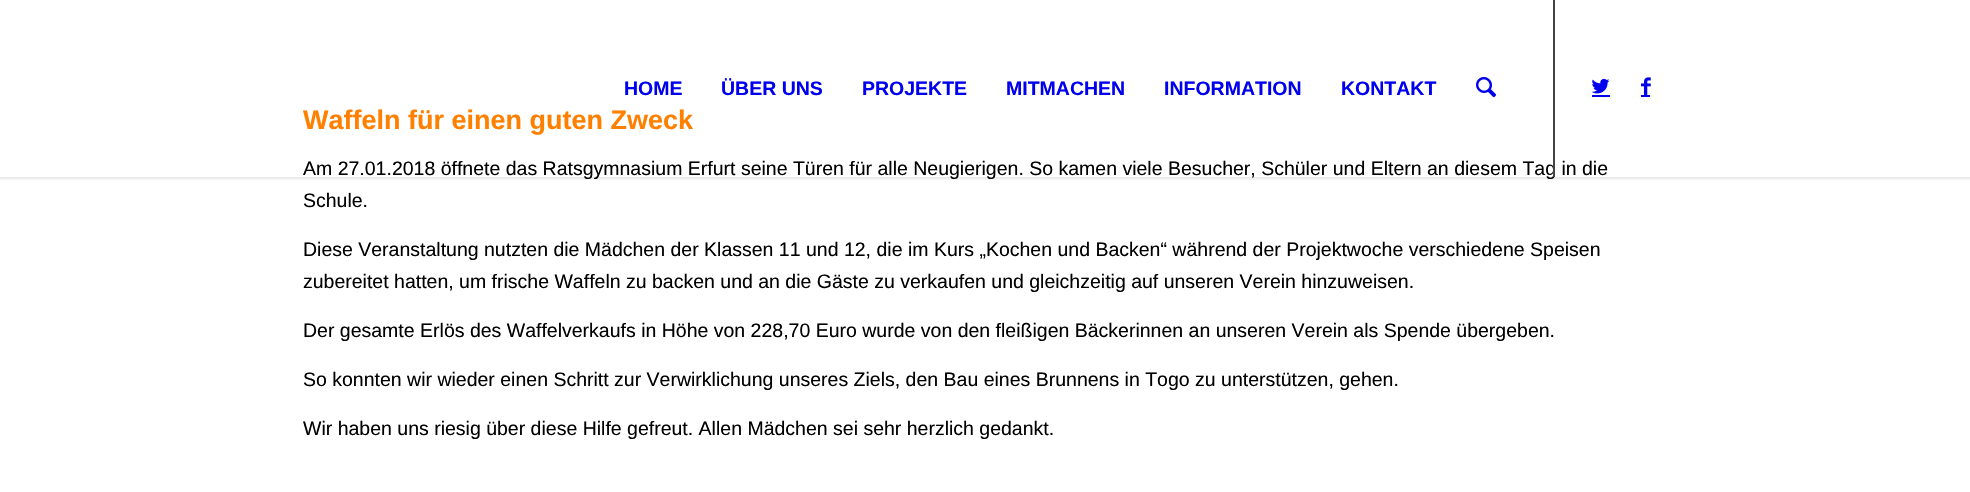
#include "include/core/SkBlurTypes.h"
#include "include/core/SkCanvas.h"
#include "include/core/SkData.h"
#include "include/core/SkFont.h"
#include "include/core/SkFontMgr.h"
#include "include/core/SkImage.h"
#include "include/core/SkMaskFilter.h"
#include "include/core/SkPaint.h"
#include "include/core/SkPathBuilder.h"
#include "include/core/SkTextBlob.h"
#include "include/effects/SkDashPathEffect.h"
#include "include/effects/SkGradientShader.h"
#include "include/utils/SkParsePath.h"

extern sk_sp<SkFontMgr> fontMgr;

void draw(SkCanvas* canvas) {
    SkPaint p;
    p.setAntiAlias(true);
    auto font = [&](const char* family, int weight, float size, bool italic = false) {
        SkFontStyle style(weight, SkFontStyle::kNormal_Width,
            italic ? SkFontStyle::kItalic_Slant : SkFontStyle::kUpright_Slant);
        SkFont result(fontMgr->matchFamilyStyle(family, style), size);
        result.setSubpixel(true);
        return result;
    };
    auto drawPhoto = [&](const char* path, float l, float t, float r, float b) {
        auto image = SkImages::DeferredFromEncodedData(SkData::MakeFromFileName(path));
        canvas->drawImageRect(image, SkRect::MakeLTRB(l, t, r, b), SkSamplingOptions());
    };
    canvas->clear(0xFFFFFFFF);
    canvas->save();
    canvas->clipRect(SkRect::MakeLTRB(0, 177, 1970, 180));
    p.setColor(0x1A000000);
    p.setMaskFilter(SkMaskFilter::MakeBlur(kNormal_SkBlurStyle, 1.5f));
    canvas->drawRect(SkRect::MakeLTRB(-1, -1, 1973, 179), p);
    p.setMaskFilter(nullptr);
    canvas->restore();
    auto font1 = font("Liberation Sans", 400, 19.5f);
    p.setColor(0xFF000000);
    canvas->drawString("Am 27.01.2018 öffnete das Ratsgymnasium Erfurt seine Türen für alle Neugierigen. So kamen viele Besucher, Schüler und Eltern an diesem Tag in die", 303, 175, font1, p);
    p.setColor(0xFF444444);
    canvas->drawRect(SkRect::MakeLTRB(1553, 0, 1555, 177), p);
    auto font2 = font("Liberation Sans", 700, 19.5f);
    p.setColor(0xFF0000EE);
    {
        const struct { const char* s; float x, y; } items[] = {
            {"HOME", 624, 95},
            {"ÜBER UNS", 721, 95},
            {"PROJEKTE", 862, 95},
            {"MITMACHEN", 1006, 95},
            {"INFORMATION", 1164, 95},
            {"KONTAKT", 1341, 95},
        };
        for (auto [s, x, y] : items) {
            canvas->drawString(s, x, y, font2, p);
        }
    }
    drawPhoto("media/1.png", 1476, 77, 1497, 98);
    drawPhoto("media/2.png", 1591, 78, 1610, 94);
    canvas->drawRect(SkRect::MakeLTRB(1592, 95, 1610, 97), p);
    drawPhoto("media/3.png", 1641, 77, 1651, 95);
    canvas->drawRect(SkRect::MakeLTRB(1641, 95, 1650, 97), p);
    auto font3 = font("Liberation Sans", 700, 27);
    p.setColor(0xFFFF8000);
    canvas->drawString("Waffeln für einen guten Zweck", 303, 129, font3, p);
    p.setColor(0xFF000000);
    {
        const struct { const char* s; float x, y; } items[] = {
            {"Schule.", 303, 207},
            {"Diese Veranstaltung nutzten die Mädchen der Klassen 11 und 12, die im Kurs „Kochen und Backen“ während der Projektwoche verschiedene Speisen", 303, 256},
            {"zubereitet hatten, um frische Waffeln zu backen und an die Gäste zu verkaufen und gleichzeitig auf unseren Verein hinzuweisen.", 303, 288},
            {"Der gesamte Erlös des Waffelverkaufs in Höhe von 228,70 Euro wurde von den fleißigen Bäckerinnen an unseren Verein als Spende übergeben.", 303, 337},
            {"So konnten wir wieder einen Schritt zur Verwirklichung unseres Ziels, den Bau eines Brunnens in Togo zu unterstützen, gehen.", 303, 386},
            {"Wir haben uns riesig über diese Hilfe gefreut. Allen Mädchen sei sehr herzlich gedankt.", 303, 435},
        };
        for (auto [s, x, y] : items) {
            canvas->drawString(s, x, y, font1, p);
        }
    }
}
